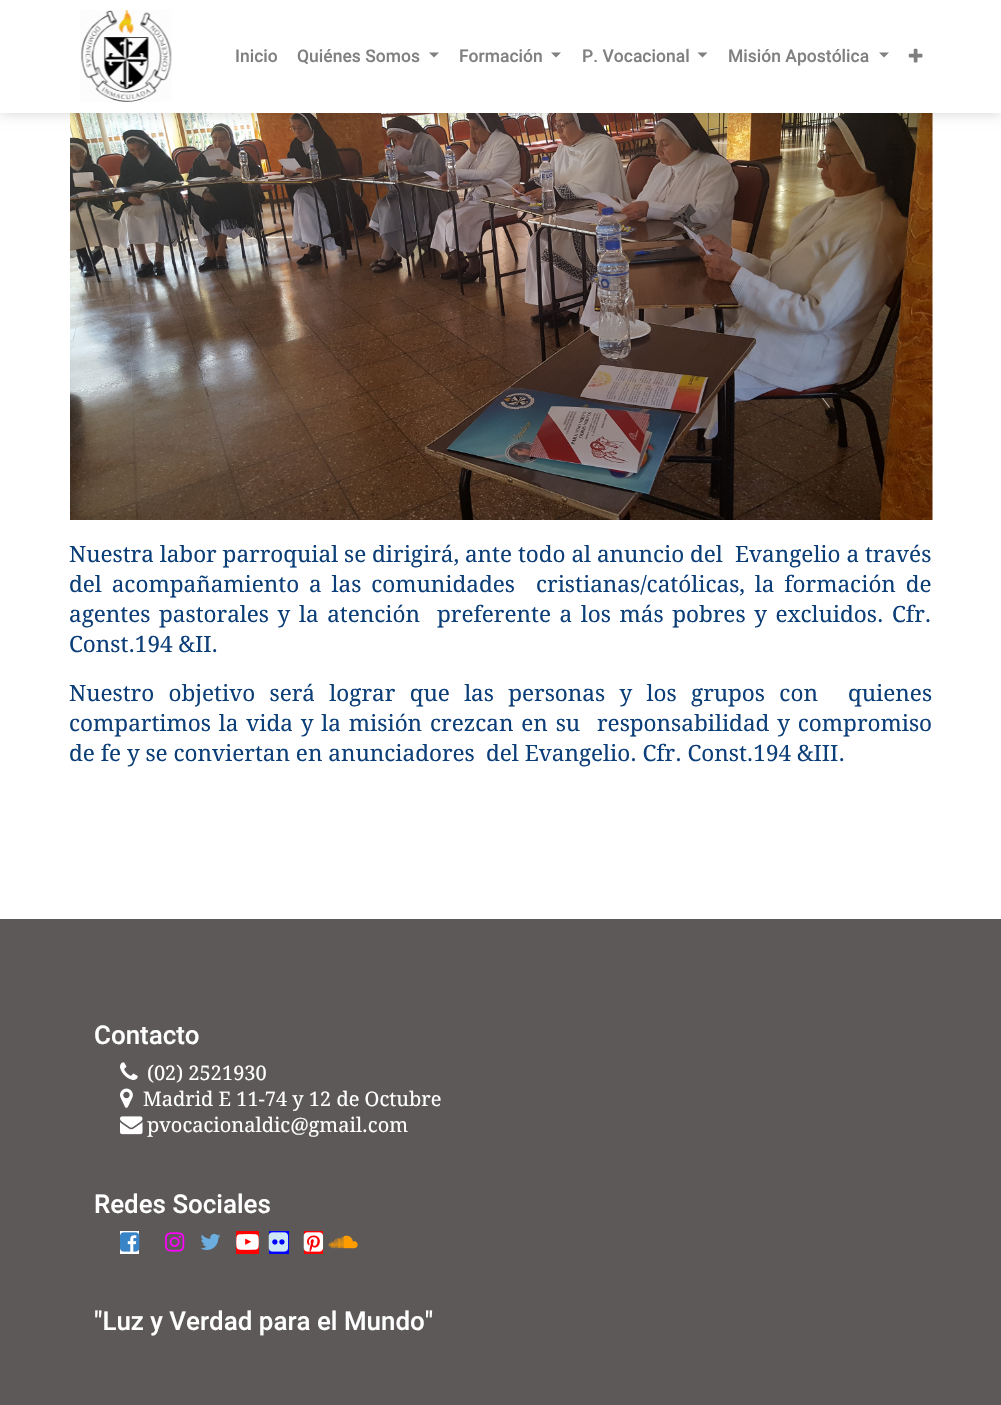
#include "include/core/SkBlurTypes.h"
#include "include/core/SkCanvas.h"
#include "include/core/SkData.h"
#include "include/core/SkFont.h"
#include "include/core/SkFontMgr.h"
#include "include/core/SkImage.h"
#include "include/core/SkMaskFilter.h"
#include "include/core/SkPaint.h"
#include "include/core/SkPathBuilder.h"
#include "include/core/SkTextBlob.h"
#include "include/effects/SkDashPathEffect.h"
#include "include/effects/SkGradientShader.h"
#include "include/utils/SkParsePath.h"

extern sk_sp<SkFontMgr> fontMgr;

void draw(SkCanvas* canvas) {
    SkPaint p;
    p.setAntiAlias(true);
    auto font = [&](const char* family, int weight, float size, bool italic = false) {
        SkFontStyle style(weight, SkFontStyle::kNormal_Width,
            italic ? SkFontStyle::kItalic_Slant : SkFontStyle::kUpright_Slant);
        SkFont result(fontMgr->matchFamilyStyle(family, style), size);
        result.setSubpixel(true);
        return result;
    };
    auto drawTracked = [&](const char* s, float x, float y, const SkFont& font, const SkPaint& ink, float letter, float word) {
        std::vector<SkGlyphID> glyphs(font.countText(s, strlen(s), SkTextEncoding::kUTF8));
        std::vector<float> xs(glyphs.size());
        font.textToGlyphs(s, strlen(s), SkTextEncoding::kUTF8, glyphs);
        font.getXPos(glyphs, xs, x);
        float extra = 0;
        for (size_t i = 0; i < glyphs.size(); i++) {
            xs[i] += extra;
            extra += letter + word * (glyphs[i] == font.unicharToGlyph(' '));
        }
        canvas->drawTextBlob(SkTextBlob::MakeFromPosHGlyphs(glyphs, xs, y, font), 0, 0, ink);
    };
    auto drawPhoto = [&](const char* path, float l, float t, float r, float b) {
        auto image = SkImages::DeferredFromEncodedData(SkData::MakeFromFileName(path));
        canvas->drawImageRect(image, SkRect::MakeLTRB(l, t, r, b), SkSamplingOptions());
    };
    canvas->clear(0xFFFFFFFF);
    drawPhoto("media/3.png", 70, 113, 933, 520);
    p.setColor(0x26000000);
    p.setMaskFilter(SkMaskFilter::MakeBlur(kNormal_SkBlurStyle, 6));
    canvas->drawRect(SkRect::MakeLTRB(0, 1, 1001, 114), p);
    p.setMaskFilter(nullptr);
    p.setColor(0xFFFFFFFF);
    canvas->drawRect(SkRect::MakeLTRB(0, 0, 1001, 113), p);
    drawPhoto("media/1.png", 80, 10, 172, 102);
    auto font1 = font("Roboto", 500, 17.5f);
    p.setColor(0xFF808080);
    canvas->drawString("Inicio", 235, 62, font1, p);
    canvas->drawString("Quiénes Somos", 297, 62, font1, p);
    canvas->drawPath(SkPathBuilder().moveTo(429, 52.5f).lineTo(439, 52.5f).lineTo(434, 57.5f).close().detach(), p);
    canvas->drawString("Formación", 459, 62, font1, p);
    canvas->drawPath(SkPathBuilder().moveTo(551, 52.5f).lineTo(561, 52.5f).lineTo(556, 57.5f).close().detach(), p);
    canvas->drawString("P. Vocacional", 582, 62, font1, p);
    canvas->drawPath(SkPathBuilder().moveTo(697.5f, 52.5f).lineTo(707.5f, 52.5f).lineTo(702.5f, 57.5f).close().detach(), p);
    canvas->drawString("Misión Apostólica", 728, 62, font1, p);
    canvas->drawPath(SkPathBuilder().moveTo(879, 52.5f).lineTo(889, 52.5f).lineTo(884, 57.5f).close().detach(), p);
    drawPhoto("media/2.png", 908, 48, 923, 63);
    auto font2 = font("Droid Serif", 400, 22.5f);
    p.setColor(0xFF0C3E78);
    canvas->drawString("Nuestra labor parroquial se dirigirá, ante todo al anuncio del", 69, 562, font2, p);
    canvas->drawString("Evangelio a través", 735, 562, font2, p);
    drawTracked("del acompañamiento a las comunidades", 69, 592, font2, p, 0, 4);
    drawTracked("cristianas/católicas, la formación de", 536, 592, font2, p, 0, 4);
    drawTracked("agentes pastorales y la atención", 69, 622, font2, p, 0, 2.75f);
    drawTracked("preferente a los más pobres y excluidos. Cfr.", 437, 622, font2, p, 0, 2.75f);
    canvas->drawString("Const.194 &II.", 69, 652, font2, p);
    drawTracked("Nuestro objetivo será lograr que las personas y los grupos con", 69, 701, font2, p, 0, 8.5f);
    canvas->drawString("quienes", 848, 701, font2, p);
    drawTracked("compartimos la vida y la misión crezcan en su", 69, 731, font2, p, 0, 2);
    drawTracked("responsabilidad y compromiso", 597, 731, font2, p, 0, 2);
    canvas->drawString("de fe y se conviertan en anunciadores", 69, 761, font2, p);
    canvas->drawString("del Evangelio. Cfr. Const.194 &III.", 486, 761, font2, p);
    p.setColor(0xFF5D5959);
    canvas->drawRect(SkRect::MakeLTRB(0, 919, 1001, 1405), p);
    auto font3 = font("Roboto", 500, 25.9f);
    p.setColor(0xFFFFFFFF);
    canvas->drawString("Contacto", 94, 1044, font3, p);
    drawPhoto("media/4.png", 120, 1062, 138, 1080);
    auto font4 = font("Droid Serif", 400, 20);
    canvas->drawString("(02) 2521930", 147, 1080, font4, p);
    drawPhoto("media/5.png", 120, 1088, 133, 1108);
    canvas->drawString("Madrid E 11-74 y 12 de Octubre", 143, 1106, font4, p);
    drawPhoto("media/6.png", 120, 1116, 143, 1135);
    canvas->drawString("pvocacionaldic@gmail.com", 147, 1132, font4, p);
    canvas->drawString("Redes Sociales", 94, 1213, font3, p);
    canvas->drawRect(SkRect::MakeLTRB(120, 1231, 139, 1254), p);
    drawPhoto("media/7.png", 120, 1232, 140, 1252);
    drawPhoto("media/8.png", 165, 1232, 185, 1252);
    drawPhoto("media/9.png", 200, 1233, 220, 1250);
    p.setColor(0xFFFF0000);
    canvas->drawRect(SkRect::MakeLTRB(236, 1231, 259, 1254), p);
    drawPhoto("media/10.png", 236, 1234, 259, 1250);
    p.setColor(0xFF0000FF);
    canvas->drawRect(SkRect::MakeLTRB(269, 1231, 289, 1254), p);
    drawPhoto("media/11.png", 268, 1232, 289, 1252);
    p.setColor(0xFFFF0000);
    canvas->drawRect(SkRect::MakeLTRB(304, 1231, 323, 1254), p);
    drawPhoto("media/12.png", 303, 1232, 324, 1252);
    drawPhoto("media/13.png", 328, 1235, 358, 1249);
    p.setColor(0xFFFFFFFF);
    canvas->drawString("\"Luz y Verdad para el Mundo\"", 94, 1330, font3, p);
}
